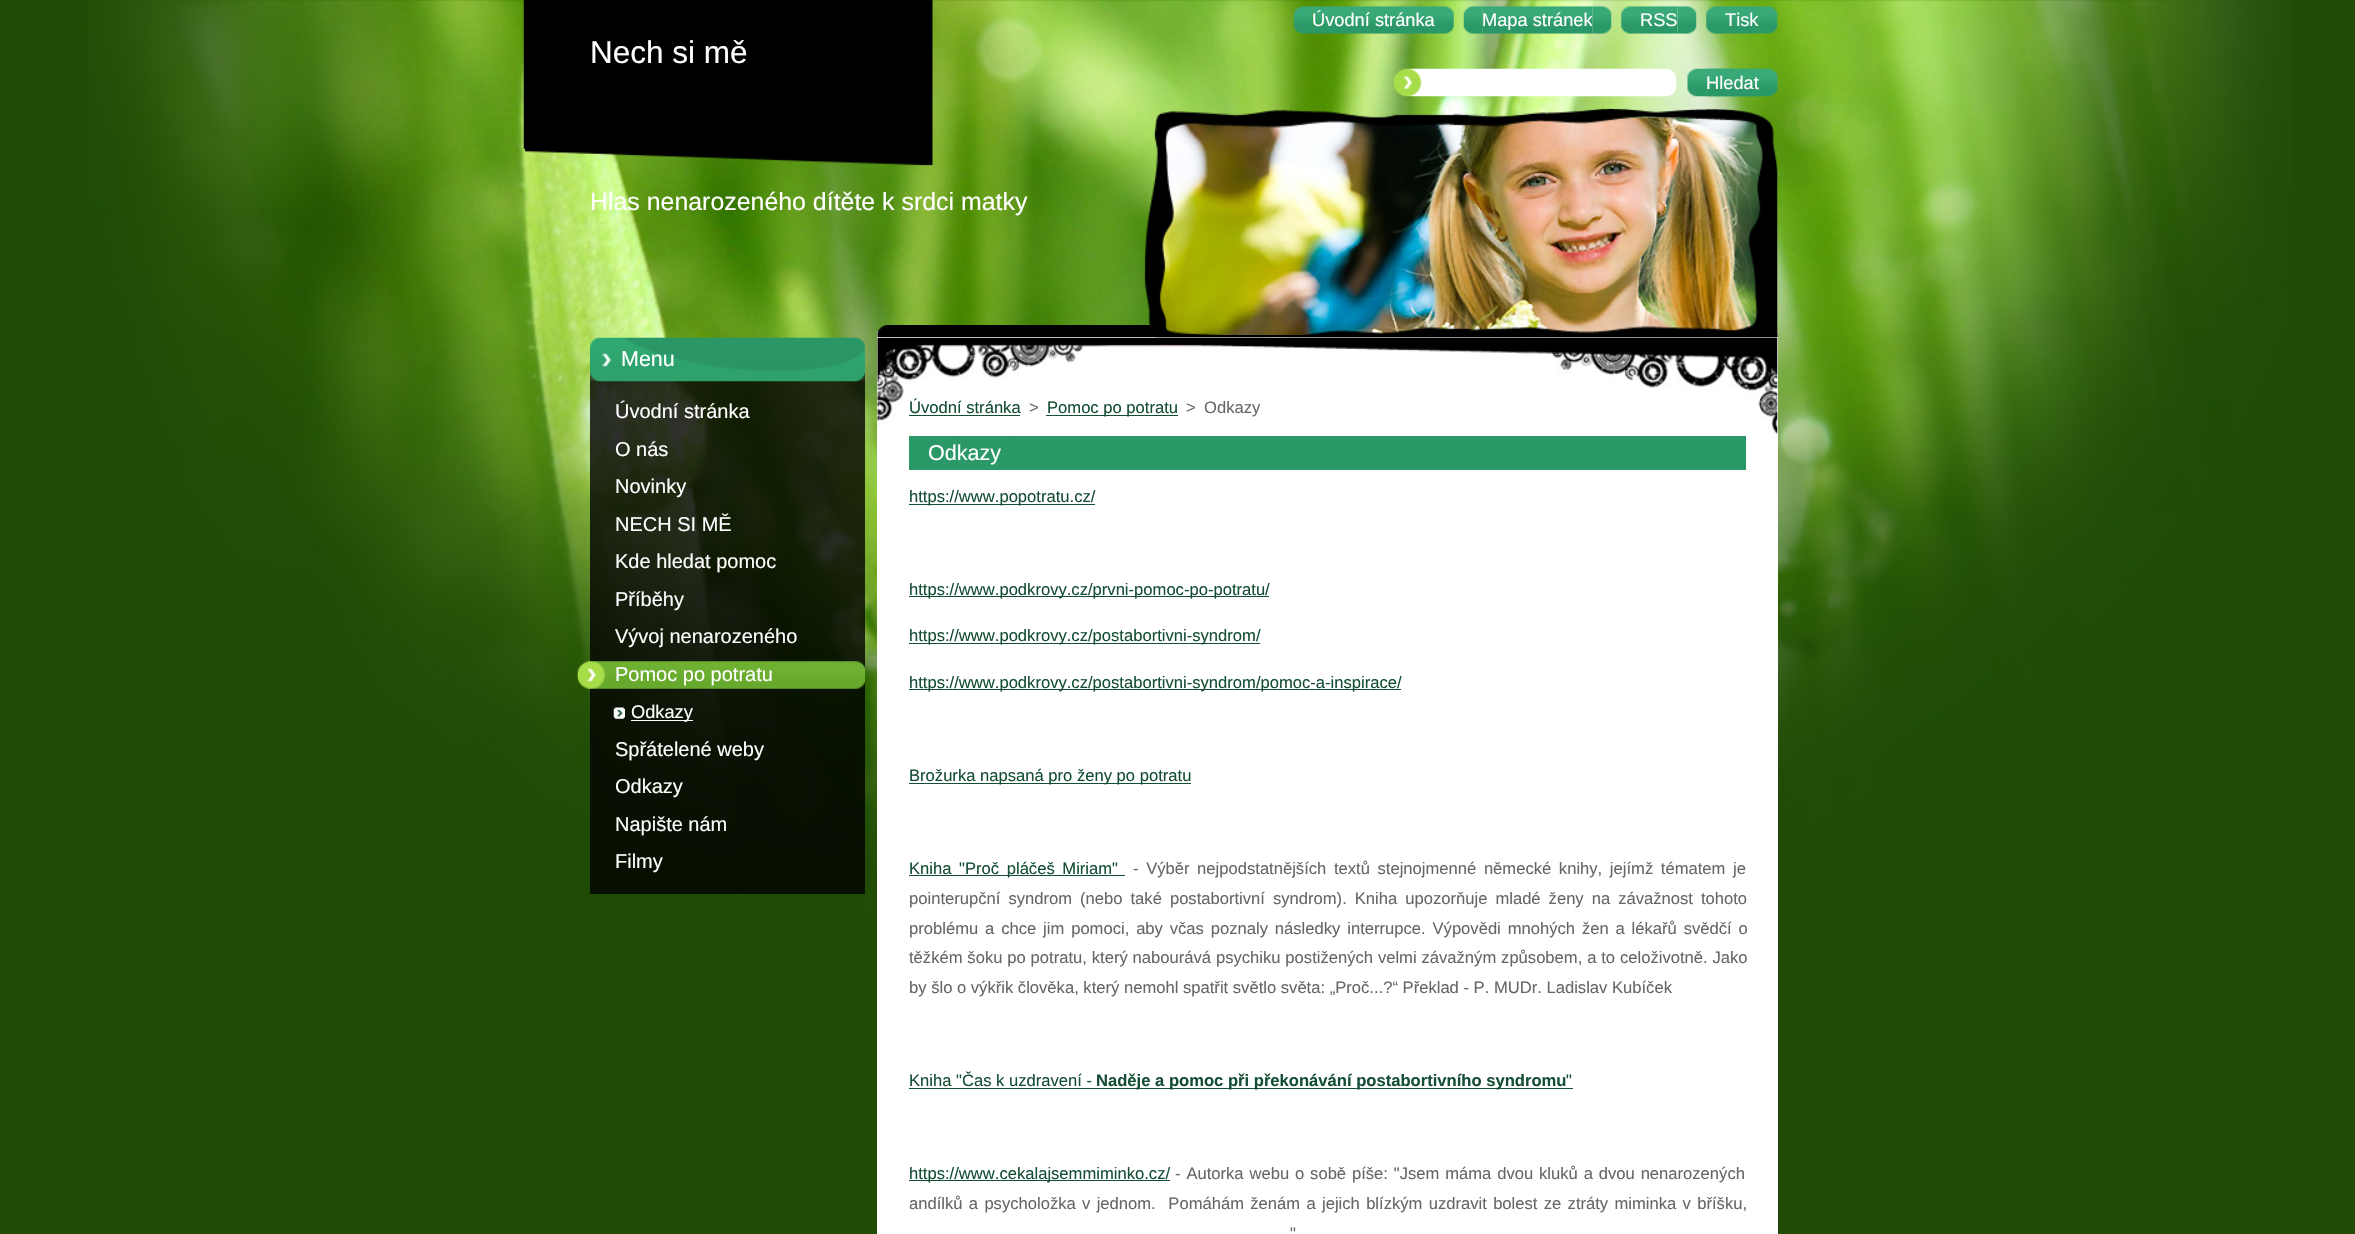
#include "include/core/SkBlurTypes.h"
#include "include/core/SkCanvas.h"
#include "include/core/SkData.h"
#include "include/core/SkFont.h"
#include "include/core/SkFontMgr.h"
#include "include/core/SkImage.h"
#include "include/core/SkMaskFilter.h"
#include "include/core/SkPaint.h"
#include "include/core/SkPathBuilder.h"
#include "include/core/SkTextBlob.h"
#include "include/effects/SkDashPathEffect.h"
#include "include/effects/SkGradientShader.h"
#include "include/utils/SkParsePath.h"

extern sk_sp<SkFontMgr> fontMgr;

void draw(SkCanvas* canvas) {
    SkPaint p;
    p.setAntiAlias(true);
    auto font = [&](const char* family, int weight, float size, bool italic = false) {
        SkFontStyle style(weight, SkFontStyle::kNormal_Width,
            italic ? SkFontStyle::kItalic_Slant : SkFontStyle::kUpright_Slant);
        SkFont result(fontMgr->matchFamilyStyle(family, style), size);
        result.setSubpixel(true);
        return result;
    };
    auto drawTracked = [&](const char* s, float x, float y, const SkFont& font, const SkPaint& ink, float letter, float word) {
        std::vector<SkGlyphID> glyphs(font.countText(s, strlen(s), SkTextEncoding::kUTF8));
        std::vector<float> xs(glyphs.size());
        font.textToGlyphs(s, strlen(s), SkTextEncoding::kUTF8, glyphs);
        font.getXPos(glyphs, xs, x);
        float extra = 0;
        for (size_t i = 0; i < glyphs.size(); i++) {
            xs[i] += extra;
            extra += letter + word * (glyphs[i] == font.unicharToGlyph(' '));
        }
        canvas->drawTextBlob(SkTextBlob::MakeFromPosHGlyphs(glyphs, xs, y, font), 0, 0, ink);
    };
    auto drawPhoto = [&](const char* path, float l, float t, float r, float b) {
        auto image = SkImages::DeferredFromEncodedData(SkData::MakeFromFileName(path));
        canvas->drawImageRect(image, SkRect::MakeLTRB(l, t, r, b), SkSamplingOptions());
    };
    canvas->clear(0xFF1F4B05);
    drawPhoto("media/1.png", 87, 0, 2293, 911);
    drawPhoto("media/2.png", 524, 0, 933, 166);
    p.setColor(0xFFFFFFFF);
    canvas->drawRect(SkRect::MakeLTRB(877, 331, 1778, 1234), p);
    drawPhoto("media/3.png", 1293, 6, 1313, 34);
    drawPhoto("media/4.png", 1312, 6, 1435, 34);
    auto font1 = font("Liberation Sans", 400, 18.25f);
    canvas->drawString("Úvodní stránka", 1312, 26, font1, p);
    drawPhoto("media/5.png", 1435, 6, 1454, 34);
    drawPhoto("media/6.png", 1463, 6, 1483, 34);
    drawPhoto("media/7.png", 1482, 6, 1593, 34);
    canvas->drawString("Mapa stránek", 1482, 26, font1, p);
    drawPhoto("media/8.png", 1592, 6, 1612, 34);
    drawPhoto("media/9.png", 1621, 6, 1640, 34);
    drawPhoto("media/10.png", 1640, 6, 1678, 34);
    canvas->drawString("RSS", 1640, 26, font1, p);
    drawPhoto("media/11.png", 1677, 6, 1697, 34);
    drawPhoto("media/12.png", 1706, 6, 1725, 34);
    drawPhoto("media/13.png", 1725, 6, 1759, 34);
    canvas->drawString("Tisk", 1725, 26, font1, p);
    drawPhoto("media/14.png", 1758, 6, 1778, 34);
    auto font2 = font("Liberation Sans", 400, 31.5f);
    canvas->drawString("Nech si mě", 590, 63, font2, p);
    drawPhoto("media/15.png", 1393, 68, 1677, 97);
    drawPhoto("media/16.png", 1687, 68, 1707, 97);
    drawPhoto("media/17.png", 1706, 68, 1759, 97);
    drawPhoto("media/19.png", 1758, 68, 1778, 97);
    drawPhoto("media/18.png", 1706, 68, 1759, 97);
    canvas->drawString("Hledat", 1706, 89, font1, p);
    drawPhoto("media/20.png", 877, 325, 1778, 337);
    auto font3 = font("Liberation Sans", 400, 24.9f);
    canvas->drawString("Hlas nenarozeného dítěte k srdci matky", 590, 210, font3, p);
    drawPhoto("media/22.png", 1157, 117, 1764, 335);
    drawPhoto("media/26.png", 877, 337, 1778, 434);
    drawPhoto("media/21.png", 1144, 108, 1778, 338);
    p.setColor(0xCC000000);
    canvas->drawRect(SkRect::MakeLTRB(590, 381, 865, 894), p);
    drawPhoto("media/23.png", 590, 337, 865, 382);
    auto font4 = font("Liberation Sans", 400, 21.5f);
    p.setColor(0xFFFFFFFF);
    canvas->drawString("Menu", 621, 366, font4, p);
    auto font5 = font("Liberation Sans", 400, 20);
    {
        const struct { const char* s; float x, y; } items[] = {
            {"Úvodní stránka", 615, 418},
            {"O nás", 615, 456},
            {"Novinky", 615, 493},
            {"NECH SI MĚ", 615, 531},
            {"Kde hledat pomoc", 615, 568},
            {"Příběhy", 615, 606},
            {"Vývoj nenarozeného", 615, 643},
        };
        for (auto [s, x, y] : items) {
            canvas->drawString(s, x, y, font5, p);
        }
    }
    drawPhoto("media/24.png", 577, 661, 865, 689);
    canvas->drawString("Pomoc po potratu", 615, 681, font5, p);
    drawPhoto("media/25.png", 613, 707, 625, 719);
    canvas->drawRect(SkRect::MakeLTRB(631, 720, 693, 721), p);
    canvas->drawString("Odkazy", 631, 718, font1, p);
    {
        const struct { const char* s; float x, y; } items[] = {
            {"Spřátelené weby", 615, 756},
            {"Odkazy", 615, 793},
            {"Napište nám", 615, 831},
            {"Filmy", 615, 868},
        };
        for (auto [s, x, y] : items) {
            canvas->drawString(s, x, y, font5, p);
        }
    }
    auto font6 = font("Liberation Sans", 400, 16.6f);
    p.setColor(0xFF144E34);
    canvas->drawString("Úvodní stránka", 909, 413, font6, p);
    canvas->drawRect(SkRect::MakeLTRB(909, 415, 1020, 416), p);
    p.setColor(0xFF666666);
    canvas->drawString(">", 1029, 413, font6, p);
    p.setColor(0xFF144E34);
    canvas->drawRect(SkRect::MakeLTRB(1046, 415, 1178, 416), p);
    canvas->drawString("Pomoc po potratu", 1047, 413, font6, p);
    p.setColor(0xFF666666);
    canvas->drawString(">", 1186, 413, font6, p);
    canvas->drawString("Odkazy", 1204, 413, font6, p);
    p.setColor(0xFF2B9967);
    canvas->drawRect(SkRect::MakeLTRB(909, 436, 1746, 470), p);
    p.setColor(0xFFFFFFFF);
    canvas->drawString("Odkazy", 928, 460, font4, p);
    p.setColor(0xFF144E34);
    canvas->drawRect(SkRect::MakeLTRB(909, 504, 1095, 505), p);
    canvas->drawString("https://www.popotratu.cz/", 909, 502, font6, p);
    canvas->drawRect(SkRect::MakeLTRB(909, 596, 1269, 597), p);
    canvas->drawString("https://www.podkrovy.cz/prvni-pomoc-po-potratu/", 909, 595, font6, p);
    canvas->drawRect(SkRect::MakeLTRB(909, 643, 1260, 644), p);
    canvas->drawString("https://www.podkrovy.cz/postabortivni-syndrom/", 909, 641, font6, p);
    canvas->drawRect(SkRect::MakeLTRB(909, 689, 1401, 690), p);
    canvas->drawString("https://www.podkrovy.cz/postabortivni-syndrom/pomoc-a-inspirace/", 909, 688, font6, p);
    canvas->drawRect(SkRect::MakeLTRB(909, 783, 1191, 784), p);
    canvas->drawString("Brožurka napsaná pro ženy po potratu", 909, 781, font6, p);
    canvas->drawRect(SkRect::MakeLTRB(909, 875, 1125, 876), p);
    drawTracked("Kniha \"Proč pláčeš Miriam\"", 909, 874, font6, p, 0, 3);
    p.setColor(0xFF666666);
    drawTracked("- Výběr nejpodstatnějších textů stejnojmenné německé knihy, jejímž tématem je", 1133, 874, font6, p, 0, 3);
    drawTracked("pointerupční syndrom (nebo také postabortivní syndrom). Kniha upozorňuje mladé ženy na závažnost tohoto", 909, 904, font6, p, 0, 3.4f);
    drawTracked("problému a chce jim pomoci, aby včas poznaly následky interrupce. Výpovědi mnohých žen a lékařů svědčí o", 909, 934, font6, p, 0, 2.25f);
    drawTracked("těžkém šoku po potratu, který nabourává psychiku postižených velmi závažným způsobem, a to celoživotně. Jako", 909, 963, font6, p, 0, 0.25f);
    canvas->drawString("by šlo o výkřik člověka, který nemohl spatřit světlo světa: „Proč...?“ Překlad - P. MUDr. Ladislav Kubíček", 909, 993, font6, p);
    p.setColor(0xFF144E34);
    canvas->drawString("Kniha \"Čas k uzdravení -", 909, 1086, font6, p);
    canvas->drawRect(SkRect::MakeLTRB(909, 1088, 1573, 1089), p);
    auto font7 = font("Liberation Sans", 700, 16.6f);
    canvas->drawString("Naděje a pomoc při překonávání postabortivního syndromu", 1096, 1086, font7, p);
    canvas->drawString("\"", 1566, 1086, font6, p);
    canvas->drawRect(SkRect::MakeLTRB(909, 1180, 1170, 1181), p);
    canvas->drawString("https://www.cekalajsemmiminko.cz/", 909, 1179, font6, p);
    p.setColor(0xFF666666);
    drawTracked("- Autorka webu o sobě píše: \"Jsem máma dvou kluků a dvou nenarozených", 1175, 1179, font6, p, 0, 1.25f);
    drawTracked("andílků a psycholožka v jednom.  Pomáhám ženám a jejich blízkým uzdravit bolest ze ztráty miminka v bříšku,", 909, 1209, font6, p, 0, 1.7f);
    canvas->drawString("\"", 1290, 1239, font6, p);
}
